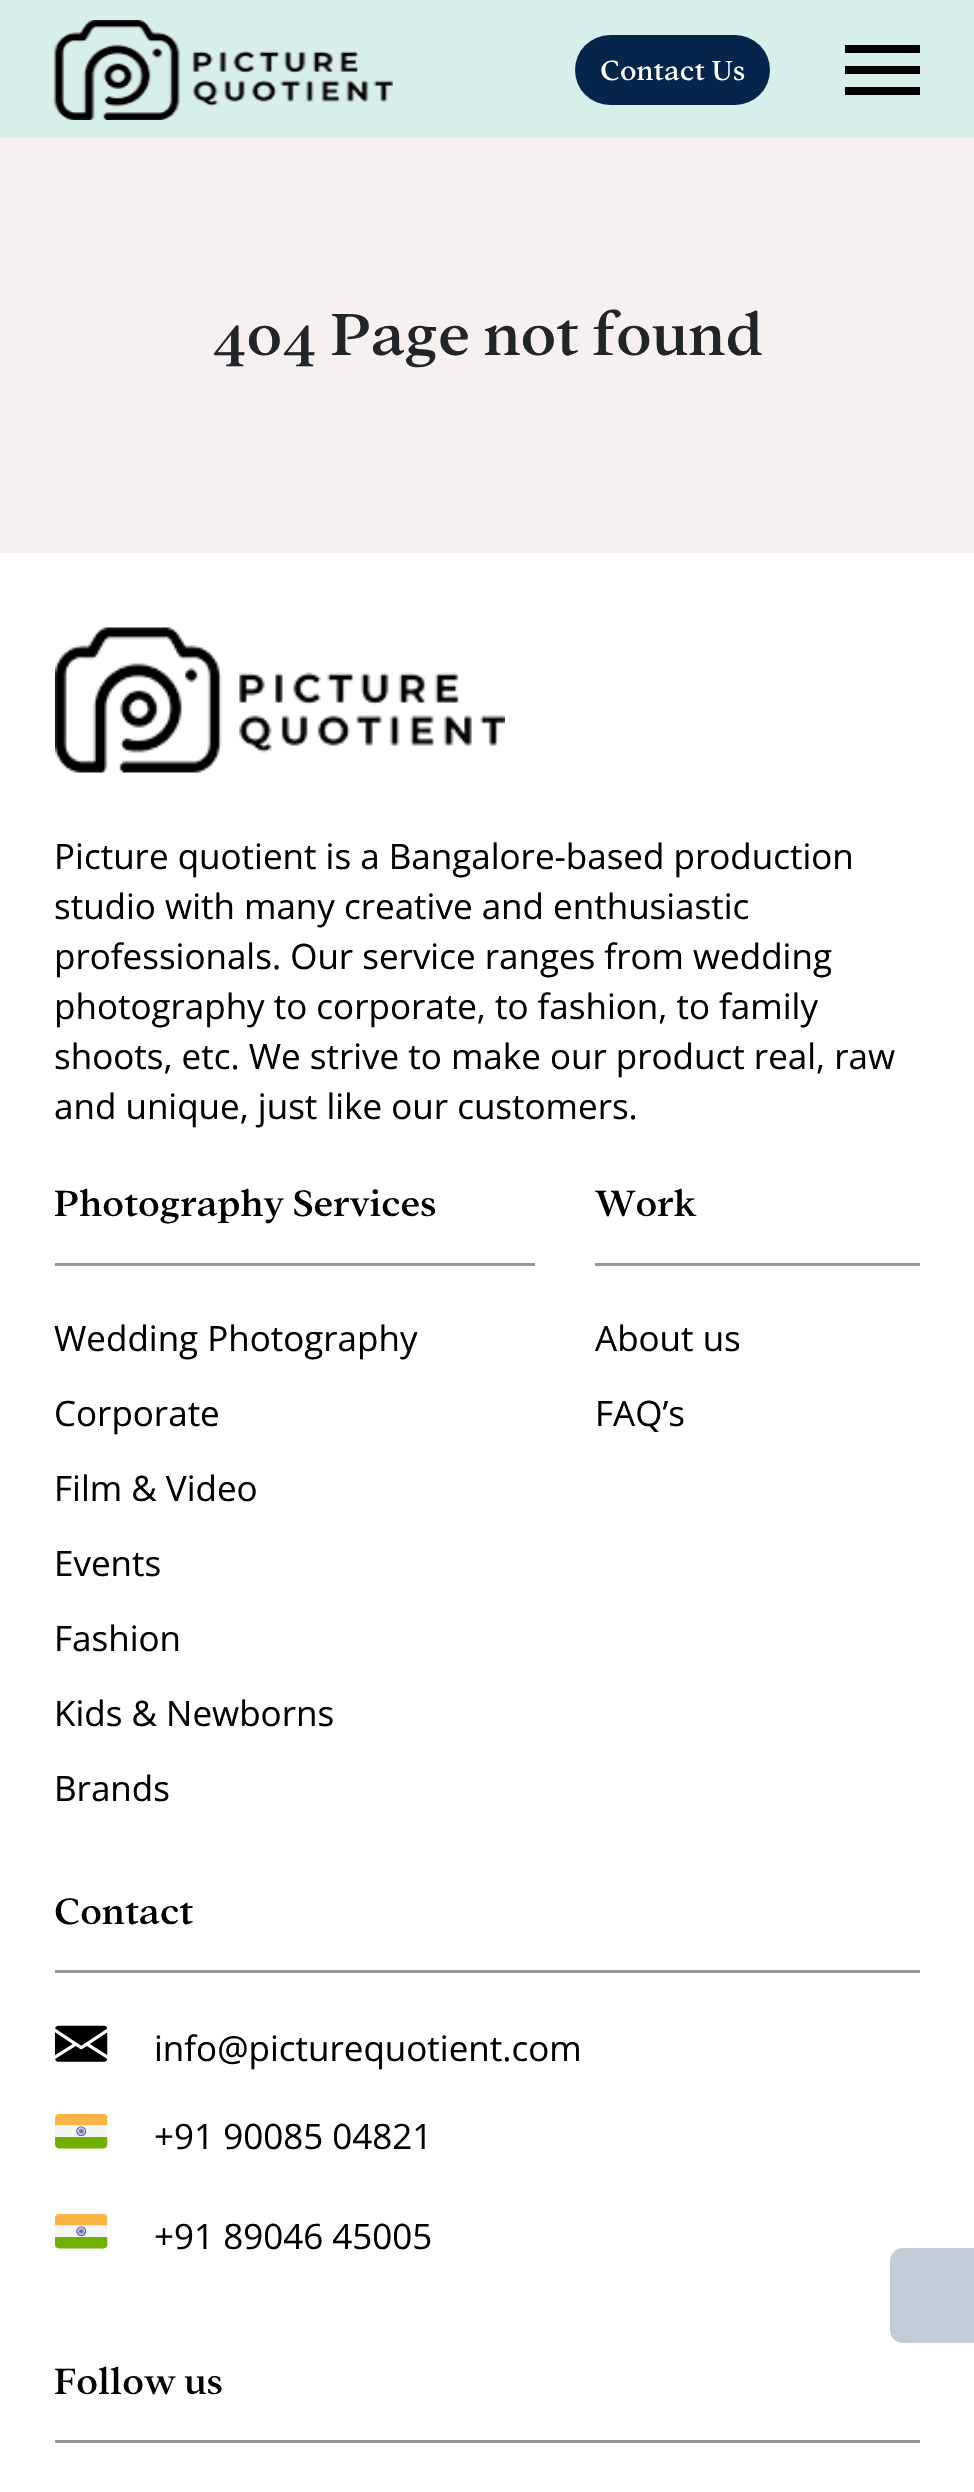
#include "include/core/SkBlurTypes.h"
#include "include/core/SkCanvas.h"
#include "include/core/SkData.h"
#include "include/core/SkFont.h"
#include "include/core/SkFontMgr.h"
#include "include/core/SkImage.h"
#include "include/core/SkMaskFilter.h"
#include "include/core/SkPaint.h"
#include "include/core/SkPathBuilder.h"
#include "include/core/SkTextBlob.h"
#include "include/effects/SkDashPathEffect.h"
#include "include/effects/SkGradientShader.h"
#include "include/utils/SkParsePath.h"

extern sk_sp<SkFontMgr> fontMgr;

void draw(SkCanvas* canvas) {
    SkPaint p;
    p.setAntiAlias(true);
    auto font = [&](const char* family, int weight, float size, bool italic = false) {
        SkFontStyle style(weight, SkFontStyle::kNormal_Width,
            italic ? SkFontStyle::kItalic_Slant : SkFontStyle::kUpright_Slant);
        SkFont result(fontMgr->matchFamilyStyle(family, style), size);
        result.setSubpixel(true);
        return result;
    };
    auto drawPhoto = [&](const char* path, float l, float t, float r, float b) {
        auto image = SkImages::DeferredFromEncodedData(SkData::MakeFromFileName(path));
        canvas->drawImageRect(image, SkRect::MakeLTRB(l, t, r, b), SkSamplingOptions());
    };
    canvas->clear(0xFFFFFFFF);
    p.setColor(0xFFD8EEEB);
    canvas->drawRect(SkRect::MakeLTRB(0, 0, 974, 138), p);
    drawPhoto("media/1.png", 53, 20, 393, 120);
    p.setColor(0xFF05254B);
    canvas->drawRoundRect(SkRect::MakeLTRB(575, 35, 770, 105), 35, 35, p);
    auto font1 = font("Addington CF", 400, 30);
    p.setColor(0xFFFFFFFF);
    canvas->drawString("Contact Us", 600, 80, font1, p);
    p.setColor(0xFF000000);
    canvas->drawPath(SkPathBuilder().moveTo(845, 95).lineTo(845, 87).lineTo(920, 87).lineTo(920, 95).close().moveTo(845, 74).lineTo(845, 66).lineTo(920, 66).lineTo(920, 74).close().moveTo(845, 45).lineTo(920, 45).lineTo(920, 53).lineTo(845, 53).close().detach(), p);
    p.setColor(0xFFF7F0F0);
    canvas->drawRect(SkRect::MakeLTRB(0, 138, 974, 553), p);
    auto font2 = font("Addington CF", 500, 65);
    p.setColor(0xFF212529);
    canvas->drawString("404 Page not found", 212, 355, font2, p);
    drawPhoto("media/2.png", 55, 627, 505, 773);
    auto font3 = font("Open Sans", 400, 35);
    p.setColor(0xFF000000);
    {
        const struct { const char* s; float x, y; } items[] = {
            {"Picture quotient is a Bangalore-based production", 54, 869},
            {"studio with many creative and enthusiastic", 54, 919},
            {"professionals. Our service ranges from wedding", 54, 969},
            {"photography to corporate, to fashion, to family", 54, 1019},
            {"shoots, etc. We strive to make our product real, raw", 54, 1069},
            {"and unique, just like our customers.", 54, 1119},
        };
        for (auto [s, x, y] : items) {
            canvas->drawString(s, x, y, font3, p);
        }
    }
    p.setColor(0xFF969696);
    canvas->drawRect(SkRect::MakeLTRB(55, 1263, 535, 1266), p);
    auto font4 = font("Addington CF", 500, 40);
    p.setColor(0xFF000000);
    canvas->drawString("Photography Services", 54, 1216, font4, p);
    {
        const struct { const char* s; float x, y; } items[] = {
            {"Wedding Photography", 54, 1351},
            {"Corporate", 54, 1426},
            {"Film & Video", 54, 1501},
            {"Events", 54, 1576},
            {"Fashion", 54, 1651},
            {"Kids & Newborns", 54, 1726},
            {"Brands", 54, 1801},
        };
        for (auto [s, x, y] : items) {
            canvas->drawString(s, x, y, font3, p);
        }
    }
    p.setColor(0xFF969696);
    canvas->drawRect(SkRect::MakeLTRB(595, 1263, 920, 1266), p);
    p.setColor(0xFF000000);
    canvas->drawString("Work", 595, 1216, font4, p);
    canvas->drawString("About us", 595, 1351, font3, p);
    canvas->drawString("FAQ’s", 595, 1426, font3, p);
    p.setColor(0xFF969696);
    canvas->drawRect(SkRect::MakeLTRB(55, 1970, 920, 1973), p);
    p.setColor(0xFF000000);
    canvas->drawString("Contact", 54, 1924, font4, p);
    drawPhoto("media/3.png", 55, 2025, 108, 2062);
    canvas->drawString("info@picturequotient.com", 154, 2061, font3, p);
    drawPhoto("media/4.png", 55, 2114, 108, 2149);
    canvas->drawString("+91 90085 04821", 154, 2149, font3, p);
    drawPhoto("media/4.png", 55, 2214, 108, 2249);
    canvas->drawString("+91 89046 45005", 154, 2249, font3, p);
    p.setColor(0xFF969696);
    canvas->drawRect(SkRect::MakeLTRB(55, 2440, 920, 2443), p);
    p.setColor(0xFF000000);
    canvas->drawString("Follow us", 54, 2394, font4, p);
    p.setColor(0xFFC1CEDA);
    canvas->drawPath(SkPathBuilder().moveTo(903, 2248).lineTo(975, 2248).lineTo(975, 2343).lineTo(903, 2343).cubicTo(896, 2343, 890, 2337, 890, 2330).lineTo(890, 2261).cubicTo(890, 2254, 896, 2248, 903, 2248).close().detach(), p);
}
